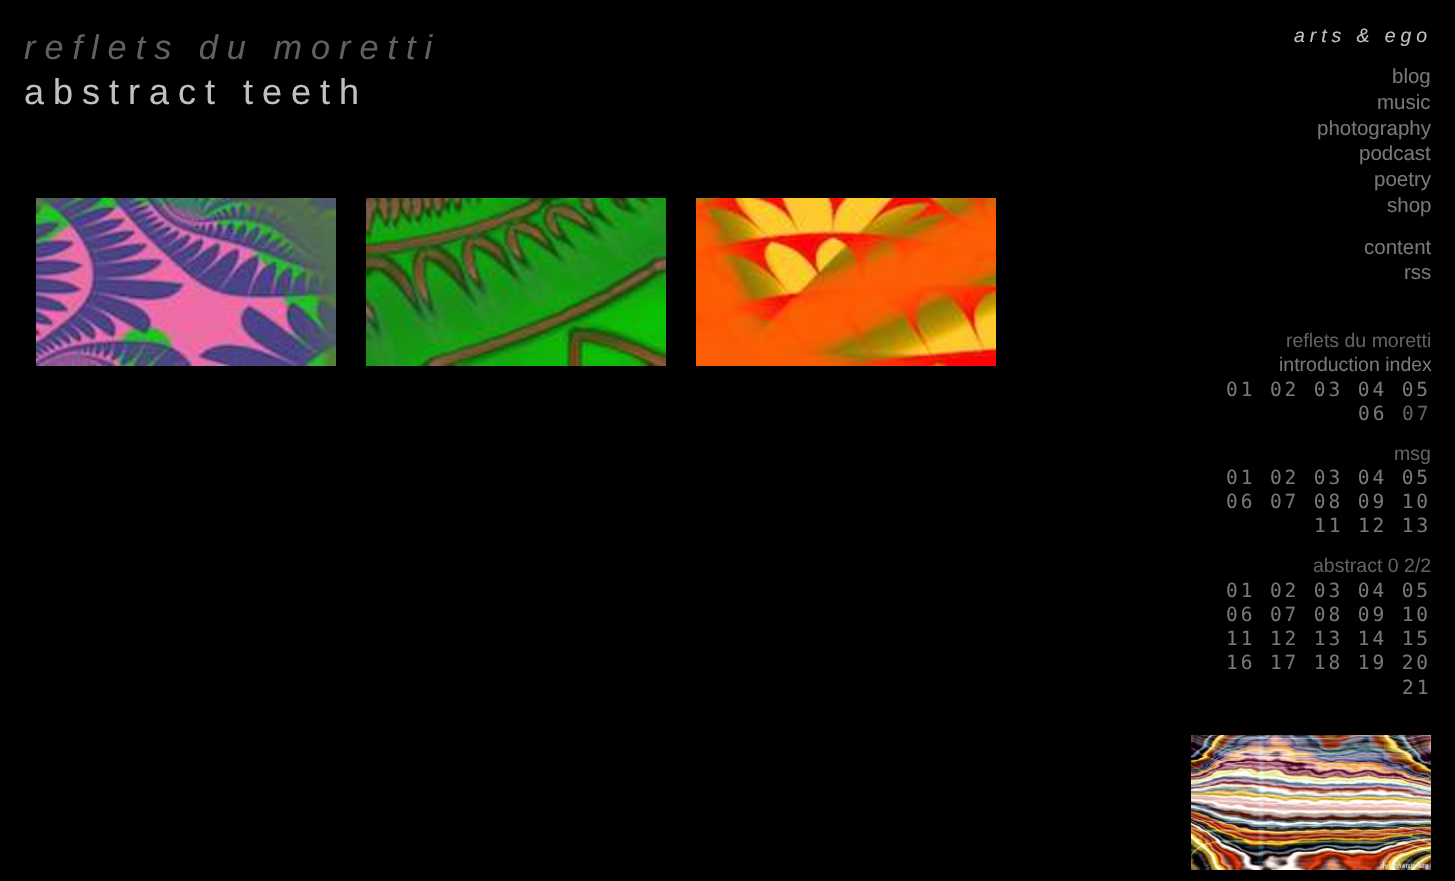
#include "include/core/SkBlurTypes.h"
#include "include/core/SkCanvas.h"
#include "include/core/SkData.h"
#include "include/core/SkFont.h"
#include "include/core/SkFontMgr.h"
#include "include/core/SkImage.h"
#include "include/core/SkMaskFilter.h"
#include "include/core/SkPaint.h"
#include "include/core/SkPathBuilder.h"
#include "include/core/SkTextBlob.h"
#include "include/effects/SkDashPathEffect.h"
#include "include/effects/SkGradientShader.h"
#include "include/utils/SkParsePath.h"

extern sk_sp<SkFontMgr> fontMgr;

void draw(SkCanvas* canvas) {
    SkPaint p;
    p.setAntiAlias(true);
    auto font = [&](const char* family, int weight, float size, bool italic = false) {
        SkFontStyle style(weight, SkFontStyle::kNormal_Width,
            italic ? SkFontStyle::kItalic_Slant : SkFontStyle::kUpright_Slant);
        SkFont result(fontMgr->matchFamilyStyle(family, style), size);
        result.setSubpixel(true);
        return result;
    };
    auto drawTracked = [&](const char* s, float x, float y, const SkFont& font, const SkPaint& ink, float letter, float word) {
        std::vector<SkGlyphID> glyphs(font.countText(s, strlen(s), SkTextEncoding::kUTF8));
        std::vector<float> xs(glyphs.size());
        font.textToGlyphs(s, strlen(s), SkTextEncoding::kUTF8, glyphs);
        font.getXPos(glyphs, xs, x);
        float extra = 0;
        for (size_t i = 0; i < glyphs.size(); i++) {
            xs[i] += extra;
            extra += letter + word * (glyphs[i] == font.unicharToGlyph(' '));
        }
        canvas->drawTextBlob(SkTextBlob::MakeFromPosHGlyphs(glyphs, xs, y, font), 0, 0, ink);
    };
    auto drawPhoto = [&](const char* path, float l, float t, float r, float b) {
        auto image = SkImages::DeferredFromEncodedData(SkData::MakeFromFileName(path));
        canvas->drawImageRect(image, SkRect::MakeLTRB(l, t, r, b), SkSamplingOptions());
    };
    canvas->clear(0xFF000000);
    auto font1 = font("Liberation Sans", 400, 34.25f, true);
    p.setColor(0xFF606060);
    drawTracked("reflets du moretti", 24, 59, font1, p, 9, 0);
    auto font2 = font("Liberation Sans", 400, 36);
    p.setColor(0xFFC0C0C0);
    drawTracked("abstract teeth", 24, 104, font2, p, 9, 0);
    drawPhoto("media/1.png", 36, 198, 336, 366);
    drawPhoto("media/2.png", 366, 198, 666, 366);
    drawPhoto("media/3.png", 696, 198, 996, 366);
    auto font3 = font("Liberation Sans", 400, 19.5f, true);
    drawTracked("arts & ego", 1294, 42, font3, p, 4.9f, 0);
    auto font4 = font("Liberation Sans", 400, 20.5f);
    p.setColor(0xFF777777);
    {
        const struct { const char* s; float x, y; } items[] = {
            {"blog", 1392, 83},
            {"music", 1377, 109},
            {"photography", 1317, 135},
            {"podcast", 1359, 160},
            {"poetry", 1374, 186},
            {"shop", 1387, 212},
            {"content", 1364, 254},
            {"rss", 1404, 279},
        };
        for (auto [s, x, y] : items) {
            canvas->drawString(s, x, y, font4, p);
        }
    }
    auto font5 = font("Liberation Sans", 400, 19.5f);
    p.setColor(0xFF606060);
    canvas->drawString("reflets du moretti", 1286, 347, font5, p);
    p.setColor(0xFF777777);
    canvas->drawString("introduction index", 1279, 371, font5, p);
    auto font6 = font("DejaVu Sans Mono", 400, 19.5f);
    drawTracked("01 02 03 04 05", 1226, 396, font6, p, 2.9f, 0);
    drawTracked("06", 1358, 420, font6, p, 2.9f, 0);
    p.setColor(0xFF606060);
    drawTracked("07", 1402, 420, font6, p, 2.9f, 0);
    canvas->drawString("msg", 1394, 460, font5, p);
    p.setColor(0xFF777777);
    {
        const struct { const char* s; float x, y; } items[] = {
            {"01 02 03 04 05", 1226, 484},
            {"06 07 08 09 10", 1226, 508},
            {"11 12 13", 1314, 532},
        };
        for (auto [s, x, y] : items) {
            drawTracked(s, x, y, font6, p, 2.9f, 0);
        }
    }
    p.setColor(0xFF606060);
    canvas->drawString("abstract 0 2/2", 1313, 572, font5, p);
    p.setColor(0xFF777777);
    {
        const struct { const char* s; float x, y; } items[] = {
            {"01 02 03 04 05", 1226, 597},
            {"06 07 08 09 10", 1226, 621},
            {"11 12 13 14 15", 1226, 645},
            {"16 17 18 19 20", 1226, 669},
            {"21", 1402, 694},
        };
        for (auto [s, x, y] : items) {
            drawTracked(s, x, y, font6, p, 2.9f, 0);
        }
    }
    drawPhoto("media/4.png", 1191, 735, 1431, 870);
}
